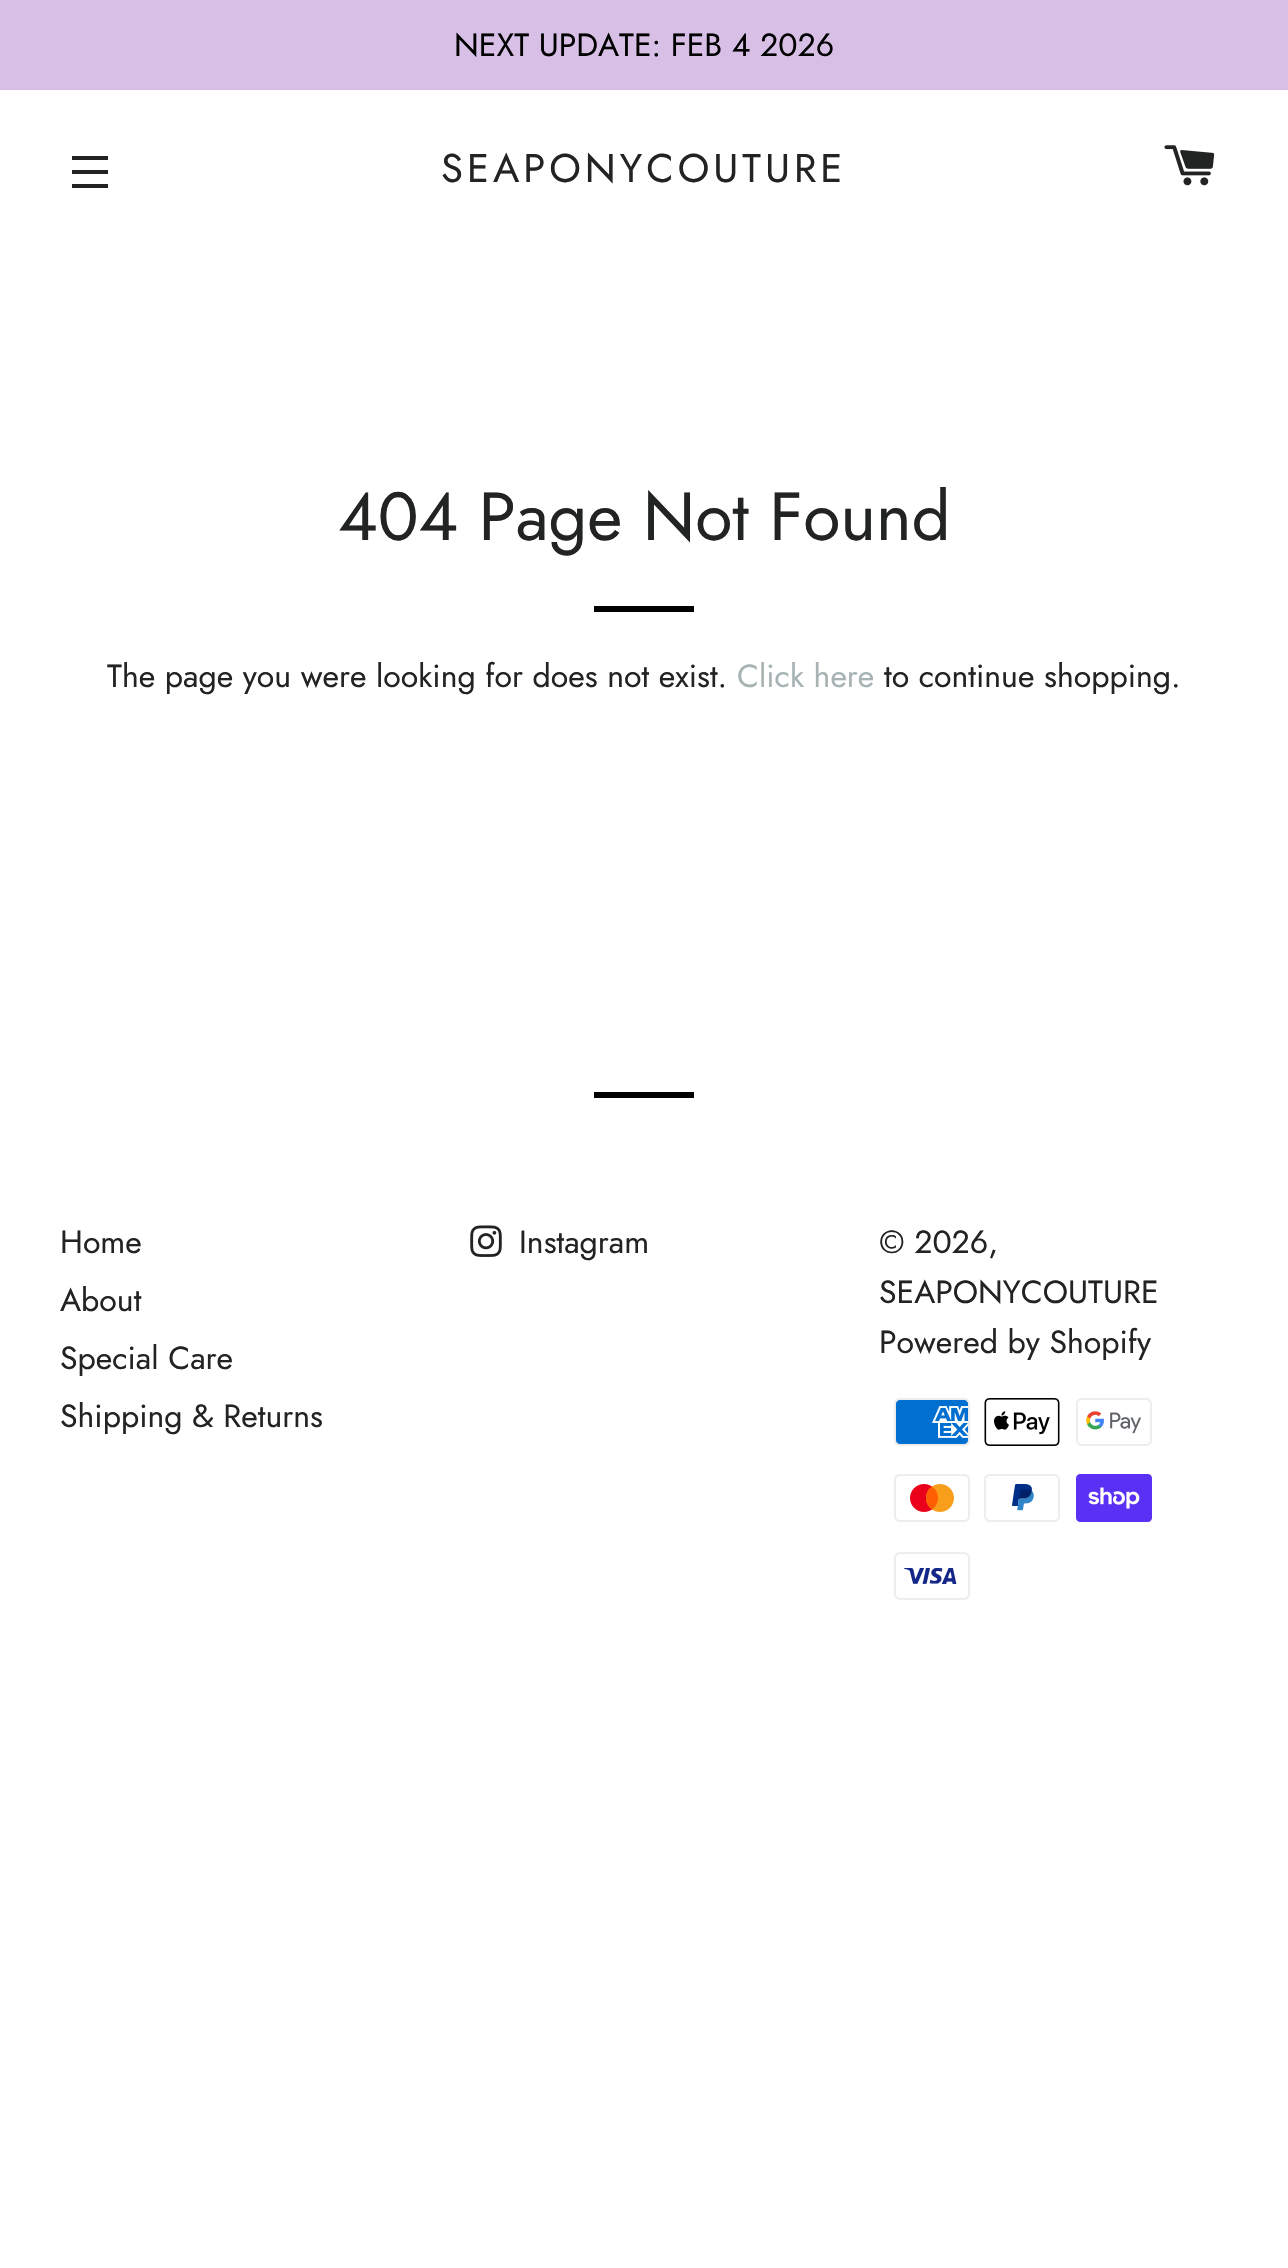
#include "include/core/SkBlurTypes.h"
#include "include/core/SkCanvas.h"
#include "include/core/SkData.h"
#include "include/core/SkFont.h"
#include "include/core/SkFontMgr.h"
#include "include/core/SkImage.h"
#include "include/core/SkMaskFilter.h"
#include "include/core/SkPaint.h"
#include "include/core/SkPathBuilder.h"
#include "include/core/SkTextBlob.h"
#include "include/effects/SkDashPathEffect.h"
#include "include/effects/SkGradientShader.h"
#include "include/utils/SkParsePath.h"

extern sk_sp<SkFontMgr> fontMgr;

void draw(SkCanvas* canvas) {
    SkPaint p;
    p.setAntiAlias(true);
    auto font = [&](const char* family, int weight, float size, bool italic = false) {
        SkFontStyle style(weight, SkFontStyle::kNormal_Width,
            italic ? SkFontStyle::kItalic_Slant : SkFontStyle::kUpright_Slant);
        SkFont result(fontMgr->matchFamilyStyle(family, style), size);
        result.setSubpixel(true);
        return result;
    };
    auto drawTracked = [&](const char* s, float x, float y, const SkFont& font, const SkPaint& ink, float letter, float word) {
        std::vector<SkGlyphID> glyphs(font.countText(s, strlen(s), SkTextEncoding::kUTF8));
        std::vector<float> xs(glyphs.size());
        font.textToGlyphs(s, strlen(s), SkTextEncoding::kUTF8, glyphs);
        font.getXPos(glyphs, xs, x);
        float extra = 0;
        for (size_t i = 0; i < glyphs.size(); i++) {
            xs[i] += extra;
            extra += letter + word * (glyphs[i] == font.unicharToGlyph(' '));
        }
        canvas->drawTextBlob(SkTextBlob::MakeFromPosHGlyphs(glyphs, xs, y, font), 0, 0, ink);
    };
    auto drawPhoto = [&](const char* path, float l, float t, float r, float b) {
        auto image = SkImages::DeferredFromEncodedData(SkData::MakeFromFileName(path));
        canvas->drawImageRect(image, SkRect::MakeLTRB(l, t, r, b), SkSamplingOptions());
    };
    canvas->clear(0xFFFFFFFF);
    p.setColor(0xFFD7BFE6);
    canvas->drawRect(SkRect::MakeLTRB(0, 0, 1288, 90), p);
    auto font1 = font("Jost", 400, 32);
    p.setColor(0xFF000000);
    canvas->drawString("NEXT UPDATE: FEB 4 2026", 454, 56, font1, p);
    {
        const struct { float l, t, r, b; SkColor color; } items[] = {
            {72, 156, 108, 160, 0xFF222323},
            {72, 170, 108, 174, 0xFF222323},
            {72, 184, 108, 188, 0xFF222323},
        };
        for (auto [l, t, r, b, color] : items) {
            p.setColor(color);
            canvas->drawRect(SkRect::MakeLTRB(l, t, r, b), p);
        }
    }
    auto font2 = font("Jost", 400, 40);
    drawTracked("SEAPONYCOUTURE", 441, 182, font2, p, 4, 0);
    drawPhoto("media/1.png", 1164, 145, 1215, 186);
    auto font3 = font("Jost", 400, 68);
    canvas->drawString("404 Page Not Found", 338, 540, font3, p);
    p.setColor(0xFF000000);
    canvas->drawRect(SkRect::MakeLTRB(594, 606, 694, 612), p);
    p.setColor(0xFF222323);
    canvas->drawString("The page you were looking for does not exist.", 107, 687, font1, p);
    p.setColor(0xFFA7B3B3);
    canvas->drawString("Click here", 737, 687, font1, p);
    p.setColor(0xFF222323);
    canvas->drawString("to continue shopping.", 884, 687, font1, p);
    p.setColor(0xFF000000);
    canvas->drawRect(SkRect::MakeLTRB(594, 1092, 694, 1098), p);
    p.setColor(0xFF222323);
    {
        const struct { const char* s; float x, y; } items[] = {
            {"Home", 60, 1253},
            {"About", 60, 1311},
            {"Special Care", 60, 1369},
            {"Shipping & Returns", 60, 1427},
        };
        for (auto [s, x, y] : items) {
            canvas->drawString(s, x, y, font1, p);
        }
    }
    drawPhoto("media/2.png", 470, 1225, 502, 1257);
    {
        const struct { const char* s; float x, y; } items[] = {
            {"Instagram", 519, 1253},
            {"© 2026,", 879, 1253},
            {"SEAPONYCOUTURE", 879, 1303},
            {"Powered by Shopify", 879, 1353},
        };
        for (auto [s, x, y] : items) {
            canvas->drawString(s, x, y, font1, p);
        }
    }
    drawPhoto("media/3.png", 894, 1398, 970, 1446);
    drawPhoto("media/4.png", 984, 1398, 1060, 1446);
    drawPhoto("media/5.png", 1076, 1398, 1152, 1446);
    drawPhoto("media/6.png", 894, 1474, 970, 1522);
    drawPhoto("media/7.png", 984, 1474, 1060, 1522);
    drawPhoto("media/8.png", 1076, 1474, 1152, 1522);
    drawPhoto("media/9.png", 894, 1552, 970, 1600);
}
